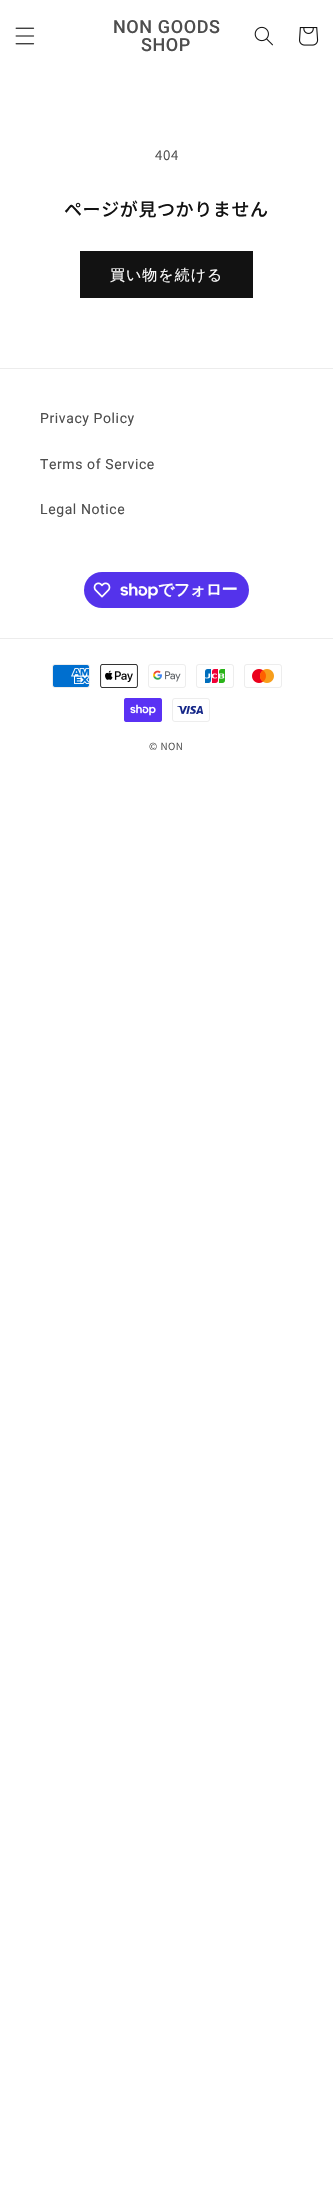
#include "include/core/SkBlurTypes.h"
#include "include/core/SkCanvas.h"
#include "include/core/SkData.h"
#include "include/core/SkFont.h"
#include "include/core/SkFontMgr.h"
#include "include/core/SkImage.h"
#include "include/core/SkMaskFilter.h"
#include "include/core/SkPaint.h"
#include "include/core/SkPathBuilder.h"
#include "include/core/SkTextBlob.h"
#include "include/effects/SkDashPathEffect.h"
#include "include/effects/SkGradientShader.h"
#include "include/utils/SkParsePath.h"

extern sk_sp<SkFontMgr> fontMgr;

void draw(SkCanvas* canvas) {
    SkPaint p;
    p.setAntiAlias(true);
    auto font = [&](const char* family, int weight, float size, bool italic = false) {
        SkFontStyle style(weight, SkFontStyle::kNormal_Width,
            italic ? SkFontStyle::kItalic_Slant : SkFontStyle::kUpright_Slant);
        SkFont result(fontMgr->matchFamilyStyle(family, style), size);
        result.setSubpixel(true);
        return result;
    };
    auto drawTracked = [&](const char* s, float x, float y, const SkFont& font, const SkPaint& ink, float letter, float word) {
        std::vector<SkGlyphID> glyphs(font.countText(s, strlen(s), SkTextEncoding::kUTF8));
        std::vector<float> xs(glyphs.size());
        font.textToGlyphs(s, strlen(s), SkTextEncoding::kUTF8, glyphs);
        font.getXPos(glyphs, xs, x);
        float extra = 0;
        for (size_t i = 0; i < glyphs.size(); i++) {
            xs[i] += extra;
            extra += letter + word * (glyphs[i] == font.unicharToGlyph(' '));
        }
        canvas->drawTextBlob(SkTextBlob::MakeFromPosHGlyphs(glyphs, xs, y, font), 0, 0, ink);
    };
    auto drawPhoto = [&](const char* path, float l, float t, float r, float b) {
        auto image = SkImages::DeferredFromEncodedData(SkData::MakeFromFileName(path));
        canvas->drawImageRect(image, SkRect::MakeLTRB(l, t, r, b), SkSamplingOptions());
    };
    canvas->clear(0xFFFFFFFF);
    drawPhoto("media/1.png", 15, 27, 35, 45);
    auto font1 = font("Roboto", 500, 18);
    p.setColor(0xFF4D4D4D);
    drawTracked("NON GOODS", 113, 33, font1, p, 0.6f, 0);
    drawTracked("SHOP", 141, 51, font1, p, 0.6f, 0);
    drawPhoto("media/2.png", 254, 26, 273, 46);
    drawPhoto("media/3.png", 299, 27, 319, 46);
    auto font2 = font("Assistant", 400, 15);
    drawTracked("404", 155, 160, font2, p, 0.6f, 0);
    auto font3 = font("Noto Sans JP", 500, 18);
    p.setColor(0xFF121212);
    drawTracked("ページが見つかりません", 64, 216, font3, p, 0.6f, 0);
    canvas->drawRect(SkRect::MakeLTRB(80, 251, 253, 298), p);
    auto font4 = font("WenQuanYi Zen Hei", 500, 15);
    p.setColor(0xFFFFFFFF);
    drawTracked("買い物を続ける", 110, 280, font4, p, 1, 0);
    p.setColor(0xFFECECEC);
    canvas->drawRect(SkRect::MakeLTRB(0, 368, 333, 369), p);
    auto font5 = font("Roboto", 400, 14);
    p.setColor(0xFF4D4D4D);
    {
        const struct { const char* s; float x, y; } items[] = {
            {"Privacy Policy", 40, 423},
            {"Terms of Service", 40, 469},
            {"Legal Notice", 40, 514},
        };
        for (auto [s, x, y] : items) {
            drawTracked(s, x, y, font5, p, 0.6f, 0);
        }
    }
    p.setColor(0xFF5433EB);
    canvas->drawRoundRect(SkRect::MakeLTRB(84, 572, 249, 608), 18, 18, p);
    drawPhoto("media/4.png", 93, 582, 111, 598);
    drawPhoto("media/5.png", 120, 583, 158, 599);
    auto font6 = font("WenQuanYi Zen Hei", 700, 16);
    p.setColor(0xFFFFFFFF);
    drawTracked("でフォロー", 158, 595, font6, p, -0.5f, 0);
    p.setColor(0xFFECECEC);
    canvas->drawRect(SkRect::MakeLTRB(0, 638, 333, 639), p);
    drawPhoto("media/6.png", 52, 664, 90, 688);
    drawPhoto("media/7.png", 100, 664, 138, 688);
    drawPhoto("media/8.png", 148, 664, 186, 688);
    drawPhoto("media/9.png", 196, 664, 234, 688);
    drawPhoto("media/10.png", 244, 664, 282, 688);
    drawPhoto("media/11.png", 124, 698, 162, 722);
    drawPhoto("media/12.png", 172, 698, 210, 722);
    auto font7 = font("Assistant", 400, 11);
    p.setColor(0xFF4D4D4D);
    drawTracked("© NON", 149, 750, font7, p, 0.5f, 0);
}
